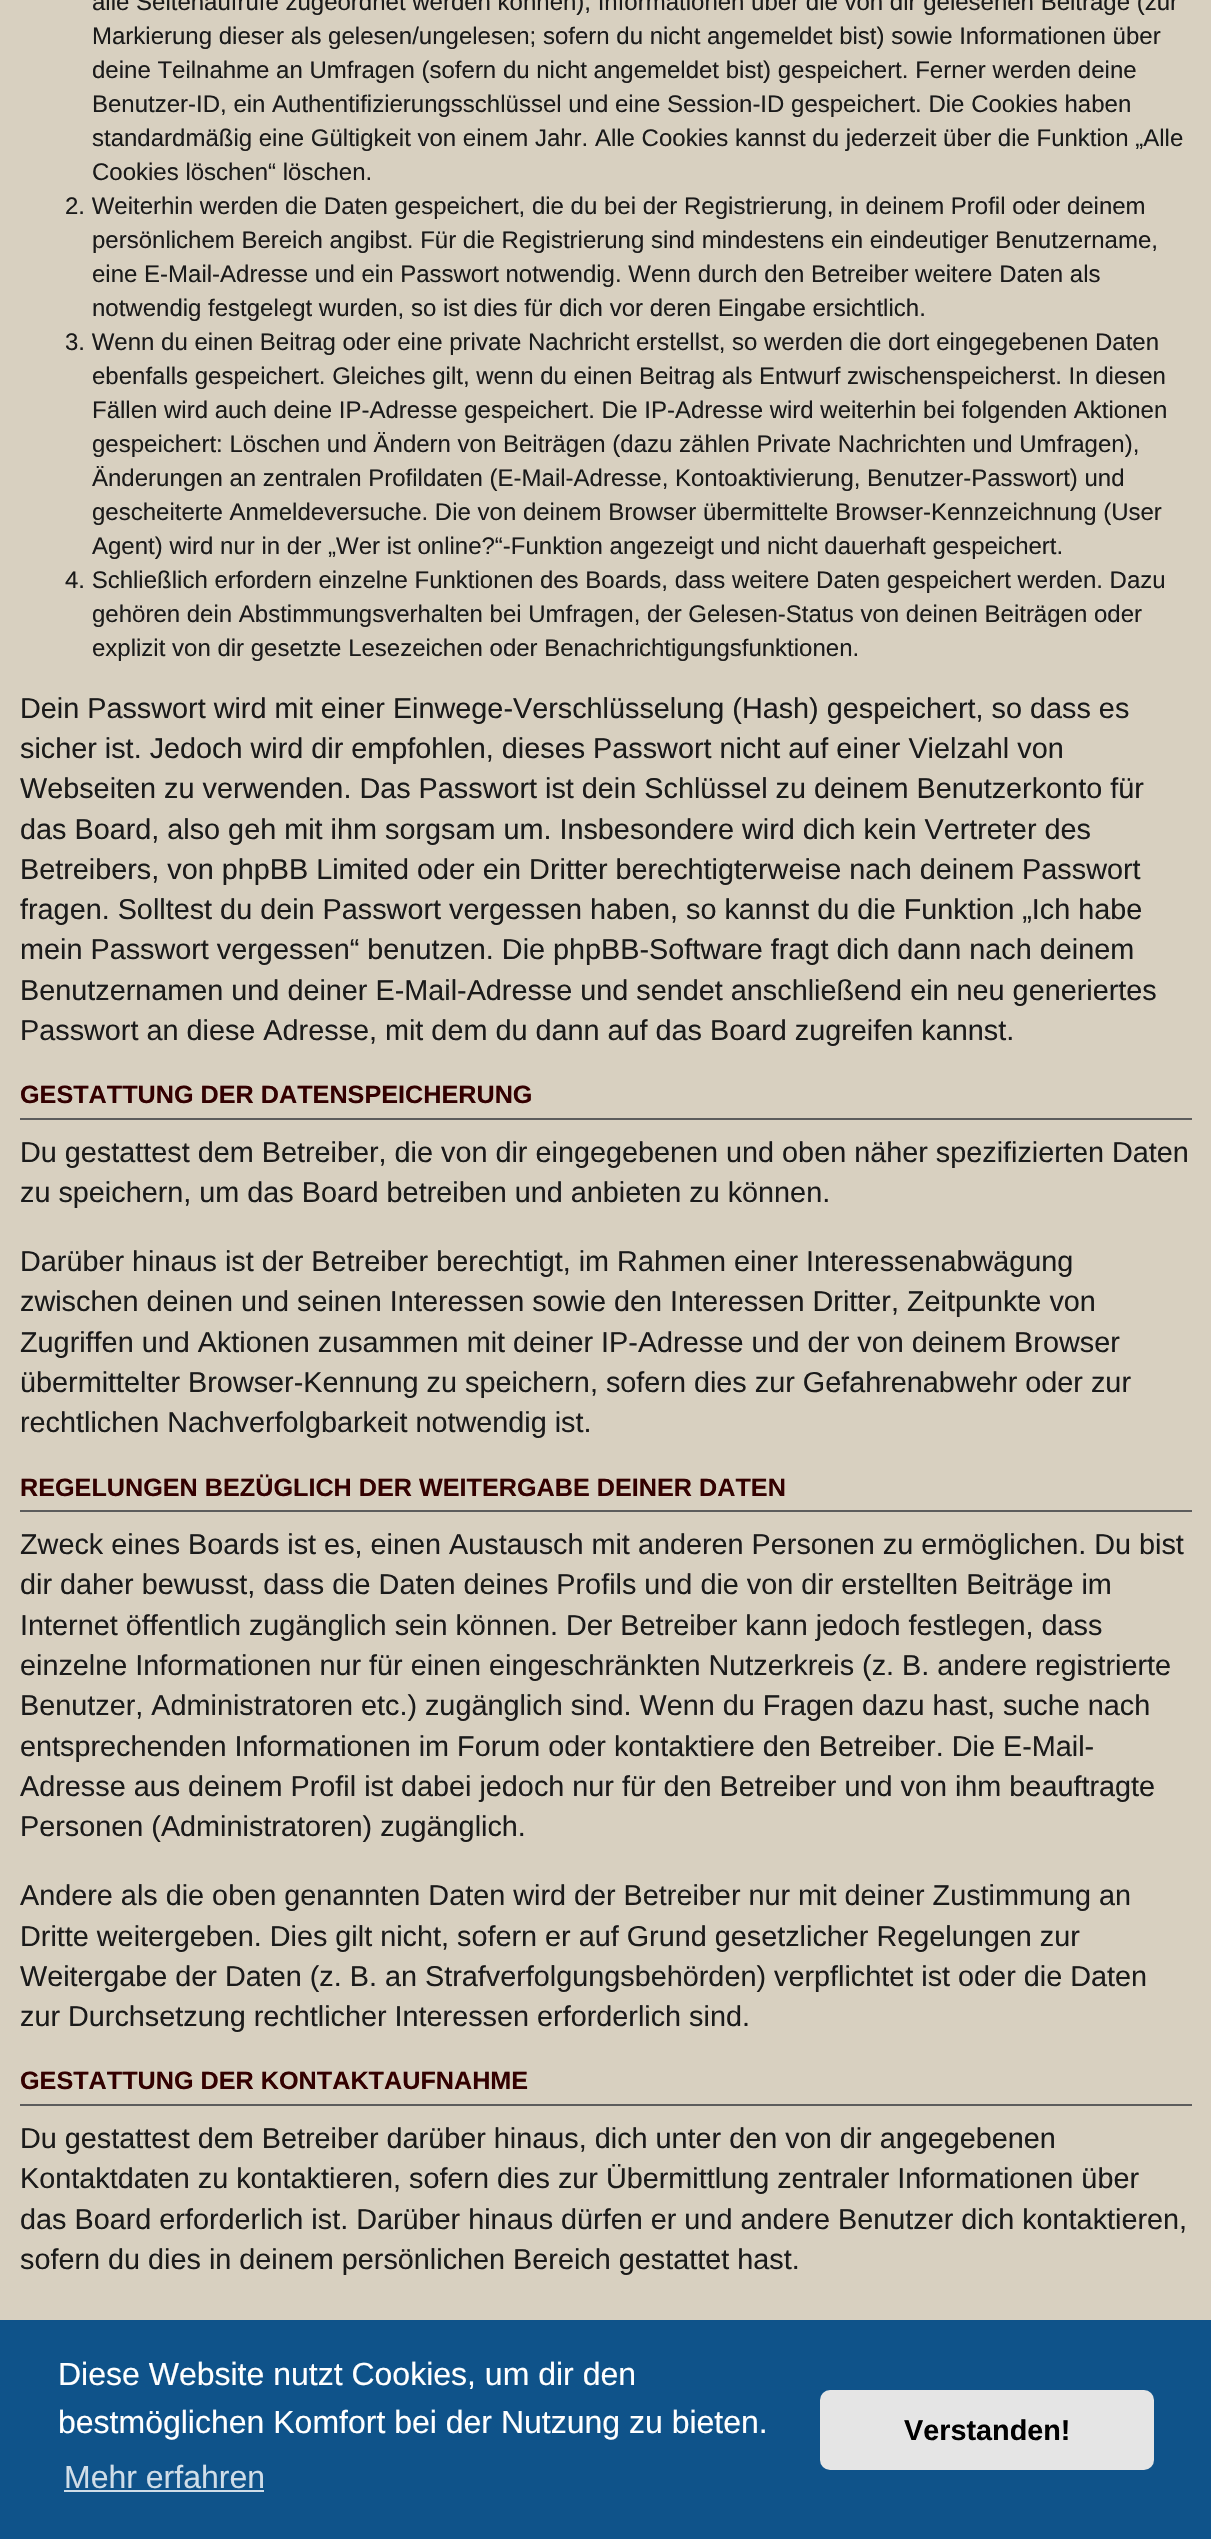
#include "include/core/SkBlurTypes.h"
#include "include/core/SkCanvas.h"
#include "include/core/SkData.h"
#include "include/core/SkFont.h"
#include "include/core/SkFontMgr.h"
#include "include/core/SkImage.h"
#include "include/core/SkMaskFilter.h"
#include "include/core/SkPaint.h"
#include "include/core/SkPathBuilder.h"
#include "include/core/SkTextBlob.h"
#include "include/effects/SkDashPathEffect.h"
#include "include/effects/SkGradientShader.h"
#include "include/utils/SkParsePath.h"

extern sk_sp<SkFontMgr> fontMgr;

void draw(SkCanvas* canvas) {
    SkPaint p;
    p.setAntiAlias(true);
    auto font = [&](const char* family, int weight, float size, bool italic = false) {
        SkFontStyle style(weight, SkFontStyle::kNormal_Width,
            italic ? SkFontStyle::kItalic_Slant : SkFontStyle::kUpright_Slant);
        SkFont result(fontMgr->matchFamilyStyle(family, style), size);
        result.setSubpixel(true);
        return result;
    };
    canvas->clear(0xFFD8D0C0);
    auto font1 = font("Liberation Sans", 400, 24);
    p.setColor(0xFF1A1A1A);
    {
        const struct { const char* s; float x, y; } items[] = {
            {"alle Seitenaufrufe zugeordnet werden können), Informationen über die von dir gelesenen Beiträge (zur", 92, 10},
            {"Markierung dieser als gelesen/ungelesen; sofern du nicht angemeldet bist) sowie Informationen über", 92, 44},
            {"deine Teilnahme an Umfragen (sofern du nicht angemeldet bist) gespeichert. Ferner werden deine", 92, 78},
            {"Benutzer-ID, ein Authentifizierungsschlüssel und eine Session-ID gespeichert. Die Cookies haben", 92, 112},
            {"standardmäßig eine Gültigkeit von einem Jahr. Alle Cookies kannst du jederzeit über die Funktion „Alle", 92, 146},
            {"Cookies löschen“ löschen.", 92, 180},
            {"2. Weiterhin werden die Daten gespeichert, die du bei der Registrierung, in deinem Profil oder deinem", 65, 214},
            {"persönlichem Bereich angibst. Für die Registrierung sind mindestens ein eindeutiger Benutzername,", 92, 248},
            {"eine E-Mail-Adresse und ein Passwort notwendig. Wenn durch den Betreiber weitere Daten als", 92, 282},
            {"notwendig festgelegt wurden, so ist dies für dich vor deren Eingabe ersichtlich.", 92, 316},
            {"3. Wenn du einen Beitrag oder eine private Nachricht erstellst, so werden die dort eingegebenen Daten", 65, 350},
            {"ebenfalls gespeichert. Gleiches gilt, wenn du einen Beitrag als Entwurf zwischenspeicherst. In diesen", 92, 384},
            {"Fällen wird auch deine IP-Adresse gespeichert. Die IP-Adresse wird weiterhin bei folgenden Aktionen", 92, 418},
            {"gespeichert: Löschen und Ändern von Beiträgen (dazu zählen Private Nachrichten und Umfragen),", 92, 452},
            {"Änderungen an zentralen Profildaten (E-Mail-Adresse, Kontoaktivierung, Benutzer-Passwort) und", 92, 486},
            {"gescheiterte Anmeldeversuche. Die von deinem Browser übermittelte Browser-Kennzeichnung (User", 92, 520},
            {"Agent) wird nur in der „Wer ist online?“-Funktion angezeigt und nicht dauerhaft gespeichert.", 92, 554},
            {"4. Schließlich erfordern einzelne Funktionen des Boards, dass weitere Daten gespeichert werden. Dazu", 65, 588},
            {"gehören dein Abstimmungsverhalten bei Umfragen, der Gelesen-Status von deinen Beiträgen oder", 92, 622},
            {"explizit von dir gesetzte Lesezeichen oder Benachrichtigungsfunktionen.", 92, 656},
        };
        for (auto [s, x, y] : items) {
            canvas->drawString(s, x, y, font1, p);
        }
    }
    auto font2 = font("Liberation Sans", 400, 28.8f);
    {
        const struct { const char* s; float x, y; } items[] = {
            {"Dein Passwort wird mit einer Einwege-Verschlüsselung (Hash) gespeichert, so dass es", 20, 718},
            {"sicher ist. Jedoch wird dir empfohlen, dieses Passwort nicht auf einer Vielzahl von", 20, 758},
            {"Webseiten zu verwenden. Das Passwort ist dein Schlüssel zu deinem Benutzerkonto für", 20, 798},
            {"das Board, also geh mit ihm sorgsam um. Insbesondere wird dich kein Vertreter des", 20, 839},
            {"Betreibers, von phpBB Limited oder ein Dritter berechtigterweise nach deinem Passwort", 20, 879},
            {"fragen. Solltest du dein Passwort vergessen haben, so kannst du die Funktion „Ich habe", 20, 919},
            {"mein Passwort vergessen“ benutzen. Die phpBB-Software fragt dich dann nach deinem", 20, 959},
            {"Benutzernamen und deiner E-Mail-Adresse und sendet anschließend ein neu generiertes", 20, 1000},
            {"Passwort an diese Adresse, mit dem du dann auf das Board zugreifen kannst.", 20, 1040},
        };
        for (auto [s, x, y] : items) {
            canvas->drawString(s, x, y, font2, p);
        }
    }
    p.setColor(0xFF5C5C5C);
    canvas->drawRect(SkRect::MakeLTRB(20, 1118, 1192, 1120), p);
    auto font3 = font("Liberation Sans", 700, 25.2f);
    p.setColor(0xFF330000);
    canvas->drawString("GESTATTUNG DER DATENSPEICHERUNG", 20, 1103, font3, p);
    p.setColor(0xFF1A1A1A);
    {
        const struct { const char* s; float x, y; } items[] = {
            {"Du gestattest dem Betreiber, die von dir eingegebenen und oben näher spezifizierten Daten", 20, 1162},
            {"zu speichern, um das Board betreiben und anbieten zu können.", 20, 1202},
            {"Darüber hinaus ist der Betreiber berechtigt, im Rahmen einer Interessenabwägung", 20, 1271},
            {"zwischen deinen und seinen Interessen sowie den Interessen Dritter, Zeitpunkte von", 20, 1311},
            {"Zugriffen und Aktionen zusammen mit deiner IP-Adresse und der von deinem Browser", 20, 1352},
            {"übermittelter Browser-Kennung zu speichern, sofern dies zur Gefahrenabwehr oder zur", 20, 1392},
            {"rechtlichen Nachverfolgbarkeit notwendig ist.", 20, 1432},
        };
        for (auto [s, x, y] : items) {
            canvas->drawString(s, x, y, font2, p);
        }
    }
    p.setColor(0xFF5C5C5C);
    canvas->drawRect(SkRect::MakeLTRB(20, 1510, 1192, 1512), p);
    p.setColor(0xFF330000);
    canvas->drawString("REGELUNGEN BEZÜGLICH DER WEITERGABE DEINER DATEN", 20, 1496, font3, p);
    p.setColor(0xFF1A1A1A);
    {
        const struct { const char* s; float x, y; } items[] = {
            {"Zweck eines Boards ist es, einen Austausch mit anderen Personen zu ermöglichen. Du bist", 20, 1554},
            {"dir daher bewusst, dass die Daten deines Profils und die von dir erstellten Beiträge im", 20, 1594},
            {"Internet öffentlich zugänglich sein können. Der Betreiber kann jedoch festlegen, dass", 20, 1635},
            {"einzelne Informationen nur für einen eingeschränkten Nutzerkreis (z. B. andere registrierte", 20, 1675},
            {"Benutzer, Administratoren etc.) zugänglich sind. Wenn du Fragen dazu hast, suche nach", 20, 1715},
            {"entsprechenden Informationen im Forum oder kontaktiere den Betreiber. Die E-Mail-", 20, 1756},
            {"Adresse aus deinem Profil ist dabei jedoch nur für den Betreiber und von ihm beauftragte", 20, 1796},
            {"Personen (Administratoren) zugänglich.", 20, 1836},
            {"Andere als die oben genannten Daten wird der Betreiber nur mit deiner Zustimmung an", 20, 1905},
            {"Dritte weitergeben. Dies gilt nicht, sofern er auf Grund gesetzlicher Regelungen zur", 20, 1946},
            {"Weitergabe der Daten (z. B. an Strafverfolgungsbehörden) verpflichtet ist oder die Daten", 20, 1986},
            {"zur Durchsetzung rechtlicher Interessen erforderlich sind.", 20, 2026},
        };
        for (auto [s, x, y] : items) {
            canvas->drawString(s, x, y, font2, p);
        }
    }
    p.setColor(0xFF5C5C5C);
    canvas->drawRect(SkRect::MakeLTRB(20, 2104, 1192, 2106), p);
    p.setColor(0xFF330000);
    canvas->drawString("GESTATTUNG DER KONTAKTAUFNAHME", 20, 2089, font3, p);
    p.setColor(0xFF1A1A1A);
    {
        const struct { const char* s; float x, y; } items[] = {
            {"Du gestattest dem Betreiber darüber hinaus, dich unter den von dir angegebenen", 20, 2148},
            {"Kontaktdaten zu kontaktieren, sofern dies zur Übermittlung zentraler Informationen über", 20, 2188},
            {"das Board erforderlich ist. Darüber hinaus dürfen er und andere Benutzer dich kontaktieren,", 20, 2229},
            {"sofern du dies in deinem persönlichen Bereich gestattet hast.", 20, 2269},
        };
        for (auto [s, x, y] : items) {
            canvas->drawString(s, x, y, font2, p);
        }
    }
    p.setColor(0xFF0F538A);
    canvas->drawRect(SkRect::MakeLTRB(0, 2320, 1211, 2539), p);
    auto font4 = font("Liberation Sans", 400, 32);
    p.setColor(0xFFFFFFFF);
    canvas->drawString("Diese Website nutzt Cookies, um dir den", 58, 2385, font4, p);
    canvas->drawString("bestmöglichen Komfort bei der Nutzung zu bieten.", 58, 2433, font4, p);
    p.setColor(0xFFCFDDE8);
    canvas->drawString("Mehr erfahren", 64, 2488, font4, p);
    canvas->drawRect(SkRect::MakeLTRB(64, 2490, 264, 2492), p);
    p.setColor(0xFFE5E5E5);
    canvas->drawRoundRect(SkRect::MakeLTRB(820, 2390, 1154, 2470), 10, 10, p);
    auto font5 = font("Liberation Sans", 700, 28.8f);
    p.setColor(0xFF000000);
    canvas->drawString("Verstanden!", 904, 2440, font5, p);
}
